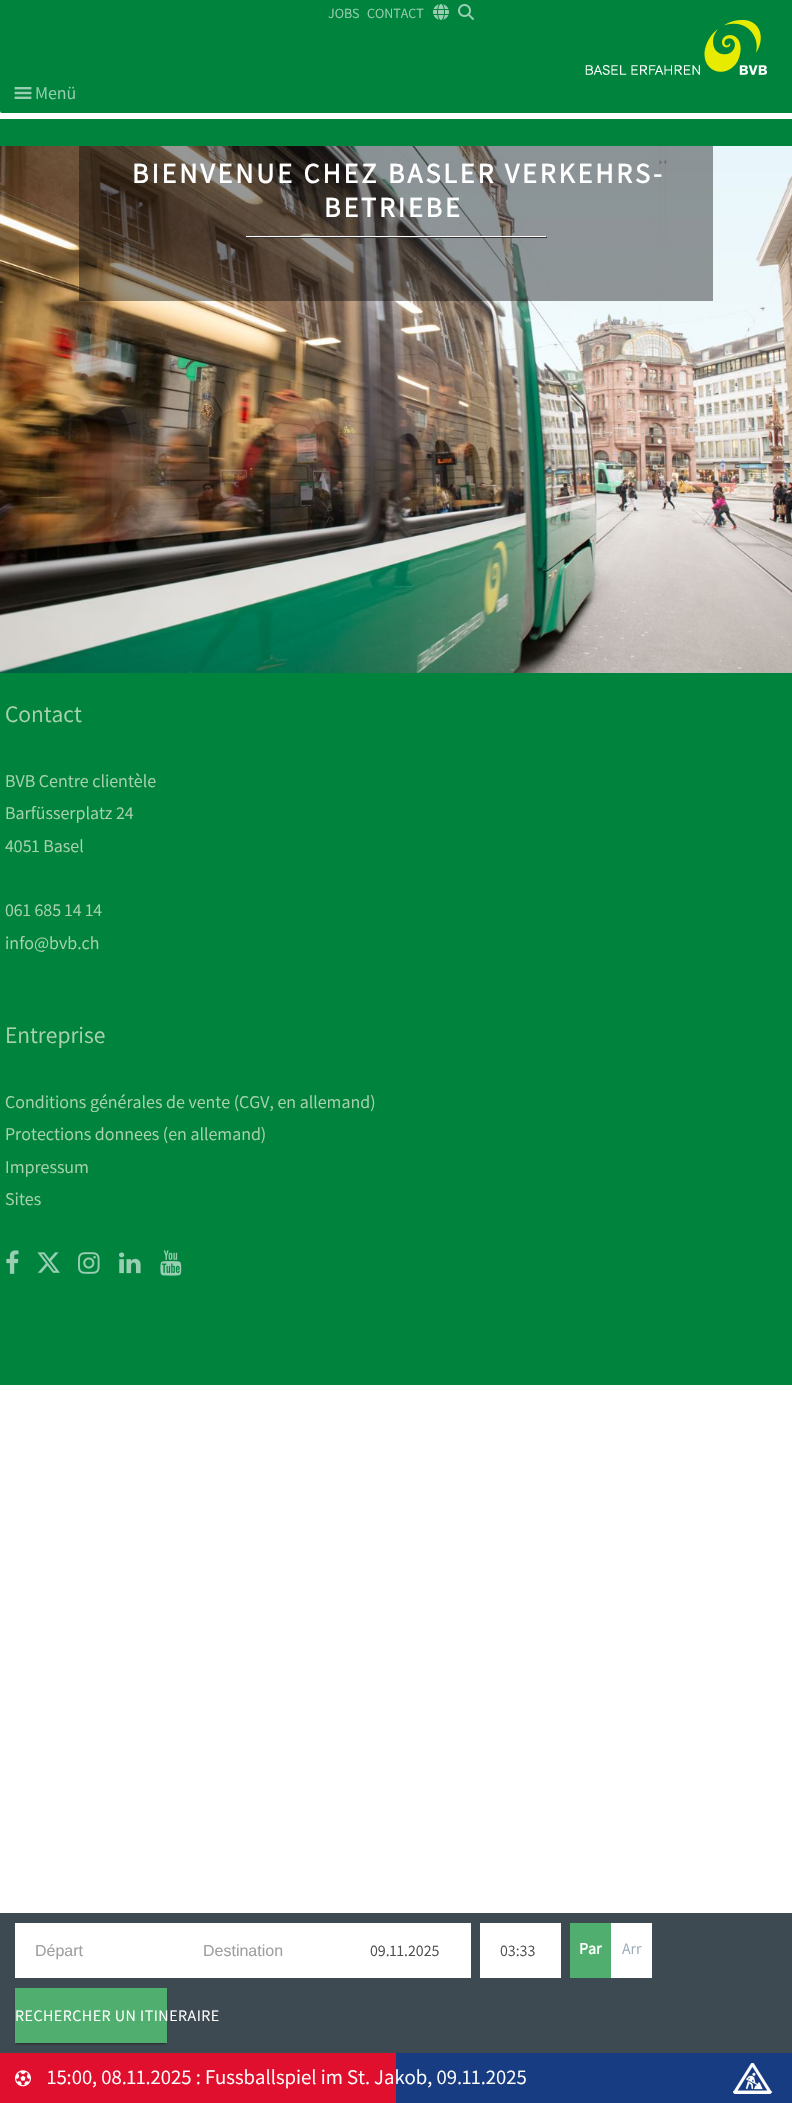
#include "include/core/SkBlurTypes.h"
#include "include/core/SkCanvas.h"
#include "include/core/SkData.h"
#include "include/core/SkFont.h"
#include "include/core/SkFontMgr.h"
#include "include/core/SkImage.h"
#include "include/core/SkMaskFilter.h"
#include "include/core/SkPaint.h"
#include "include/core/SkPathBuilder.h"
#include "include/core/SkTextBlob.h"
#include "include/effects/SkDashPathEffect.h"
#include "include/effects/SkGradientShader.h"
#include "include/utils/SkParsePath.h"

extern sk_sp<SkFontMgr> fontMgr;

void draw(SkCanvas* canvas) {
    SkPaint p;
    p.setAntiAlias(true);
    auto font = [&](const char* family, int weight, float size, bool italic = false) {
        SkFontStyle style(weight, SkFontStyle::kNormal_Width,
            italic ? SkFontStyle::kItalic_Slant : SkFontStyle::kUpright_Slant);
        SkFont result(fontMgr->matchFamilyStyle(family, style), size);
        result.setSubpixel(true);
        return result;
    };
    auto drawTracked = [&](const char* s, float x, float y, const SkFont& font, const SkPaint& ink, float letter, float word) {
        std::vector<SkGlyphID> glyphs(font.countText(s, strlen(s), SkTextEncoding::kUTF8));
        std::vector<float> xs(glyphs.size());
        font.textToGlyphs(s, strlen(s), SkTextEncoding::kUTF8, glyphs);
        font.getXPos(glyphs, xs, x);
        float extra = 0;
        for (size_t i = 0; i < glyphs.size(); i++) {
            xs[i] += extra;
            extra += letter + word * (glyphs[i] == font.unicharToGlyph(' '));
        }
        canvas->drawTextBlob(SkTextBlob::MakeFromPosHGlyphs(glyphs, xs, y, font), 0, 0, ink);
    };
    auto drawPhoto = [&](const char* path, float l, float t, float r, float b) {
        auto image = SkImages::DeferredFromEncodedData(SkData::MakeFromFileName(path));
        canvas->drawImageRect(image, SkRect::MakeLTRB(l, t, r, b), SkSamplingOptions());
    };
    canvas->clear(0xFFFFFFFF);
    p.setColor(0xFF3E4A51);
    canvas->drawRect(SkRect::MakeLTRB(0, 1913, 792, 2053), p);
    p.setColor(0xFF00843D);
    canvas->drawRect(SkRect::MakeLTRB(0, 0, 792, 73), p);
    auto font1 = font("Assistant", 200, 14);
    p.setColor(0xFF99CEB1);
    canvas->drawString("JOBS", 328, 18, font1, p);
    canvas->drawString("CONTACT", 367, 18, font1, p);
    drawPhoto("media/1.png", 433, 4, 449, 20);
    drawPhoto("media/2.png", 458, 4, 474, 20);
    p.setColor(0xFF00843D);
    canvas->drawPath(SkPathBuilder().moveTo(0, 73).lineTo(792, 73).lineTo(792, 113).lineTo(20, 113).cubicTo(9, 113, 0, 104, 0, 93).close().detach(), p);
    canvas->drawRoundRect(SkRect::MakeLTRB(0, 73, 792, 113), 2, 2, p);
    drawPhoto("media/3.png", 585, 20, 767, 75);
    drawPhoto("media/4.png", 14, 87, 32, 99);
    auto font2 = font("Assistant", 200, 18);
    p.setColor(0xFF99CEB1);
    canvas->drawString("Menü", 35, 99, font2, p);
    p.setColor(0xFF00843D);
    canvas->drawRect(SkRect::MakeLTRB(0, 119, 792, 146), p);
    drawPhoto("media/5.png", 0, 146, 792, 673);
    p.setColor(0x66000000);
    canvas->drawRect(SkRect::MakeLTRB(79, 146, 713, 301), p);
    auto font3 = font("Assistant", 700, 28);
    p.setColor(0xFFFFFFFF);
    drawTracked("BIENVENUE CHEZ BASLER VERKEHRS-", 132, 183, font3, p, 3, 0);
    drawTracked("BETRIEBE", 324, 217, font3, p, 3, 0);
    {
        const struct { float l, t, r, b; SkColor color; } items[] = {
            {247, 237, 547, 238, 0xFF333333},
            {246, 236, 546, 237, 0xFFFFFFFF},
            {0, 673, 792, 1385, 0xFF00843D},
        };
        for (auto [l, t, r, b, color] : items) {
            p.setColor(color);
            canvas->drawRect(SkRect::MakeLTRB(l, t, r, b), p);
        }
    }
    auto font4 = font("Assistant", 200, 23.5f);
    p.setColor(0xFFAAD2AF);
    canvas->drawString("Contact", 5, 722, font4, p);
    {
        const struct { const char* s; float x, y; } items[] = {
            {"BVB Centre clientèle", 5, 787},
            {"Barfüsserplatz 24", 5, 819},
            {"4051 Basel", 5, 852},
            {"061 685 14 14", 5, 916},
            {"info@bvb.ch", 5, 949},
        };
        for (auto [s, x, y] : items) {
            canvas->drawString(s, x, y, font2, p);
        }
    }
    canvas->drawString("Entreprise", 5, 1043, font4, p);
    {
        const struct { const char* s; float x, y; } items[] = {
            {"Conditions générales de vente (CGV, en allemand)", 5, 1108},
            {"Protections donnees (en allemand)", 5, 1140},
            {"Impressum", 5, 1173},
            {"Sites", 5, 1205},
        };
        for (auto [s, x, y] : items) {
            canvas->drawString(s, x, y, font2, p);
        }
    }
    drawPhoto("media/6.png", 6, 1250, 19, 1274);
    drawPhoto("media/7.png", 37, 1252, 60, 1273);
    drawPhoto("media/8.png", 78, 1252, 100, 1274);
    drawPhoto("media/9.png", 119, 1252, 141, 1274);
    drawPhoto("media/10.png", 160, 1250, 182, 1276);
    p.setColor(0xFFFFFFFF);
    canvas->drawRect(SkRect::MakeLTRB(15, 1923, 471, 1978), p);
    auto font5 = font("Liberation Sans", 400, 16);
    p.setColor(0xFF9F9F9F);
    canvas->drawString("Départ", 35, 1956, font5, p);
    canvas->drawString("Destination", 203, 1956, font5, p);
    auto font6 = font("Assistant", 200, 16);
    p.setColor(0xFF4E4E4E);
    canvas->drawString("09.11.2025", 370, 1956, font6, p);
    p.setColor(0xFFFFFFFF);
    canvas->drawRect(SkRect::MakeLTRB(480, 1923, 561, 1978), p);
    p.setColor(0xFF4E4E4E);
    canvas->drawString("03:33", 500, 1956, font6, p);
    p.setColor(0xFF50AF6E);
    canvas->drawRect(SkRect::MakeLTRB(570, 1923, 611, 1978), p);
    auto font7 = font("Assistant", 700, 16);
    p.setColor(0xFFFFFFFF);
    canvas->drawString("Par", 579, 1954, font7, p);
    canvas->drawRect(SkRect::MakeLTRB(611, 1923, 652, 1978), p);
    p.setColor(0xFF9BAAB9);
    canvas->drawString("Arr", 622, 1954, font6, p);
    p.setColor(0x33000000);
    p.setMaskFilter(SkMaskFilter::MakeBlur(kNormal_SkBlurStyle, 0.5f));
    canvas->drawRect(SkRect::MakeLTRB(17, 1993, 165, 2044), p);
    p.setMaskFilter(nullptr);
    p.setColor(0x24000000);
    p.setMaskFilter(SkMaskFilter::MakeBlur(kNormal_SkBlurStyle, 1));
    canvas->drawRect(SkRect::MakeLTRB(15, 1990, 167, 2045), p);
    p.setMaskFilter(nullptr);
    p.setColor(0xFF50AF6E);
    canvas->drawRect(SkRect::MakeLTRB(15, 1988, 167, 2043), p);
    p.setColor(0xFFFFFFFF);
    drawTracked("RECHERCHER UN ITINERAIRE", 15, 2021, font6, p, 0.5f, 0);
    p.setColor(0xFFE10F2E);
    canvas->drawRect(SkRect::MakeLTRB(0, 2053, 396, 2103), p);
    p.setColor(0xFF173C82);
    canvas->drawRect(SkRect::MakeLTRB(396, 2053, 792, 2103), p);
    drawPhoto("media/11.png", 15, 2070, 31, 2087);
    auto font8 = font("Assistant", 200, 20.8f);
    p.setColor(0xFFFFFFFF);
    canvas->drawString("15:00, 08.11.2025 : Fussballspiel im St. Jakob, 09.11.2025", 47, 2084, font8, p);
    drawPhoto("media/12.png", 733, 2063, 773, 2094);
}
